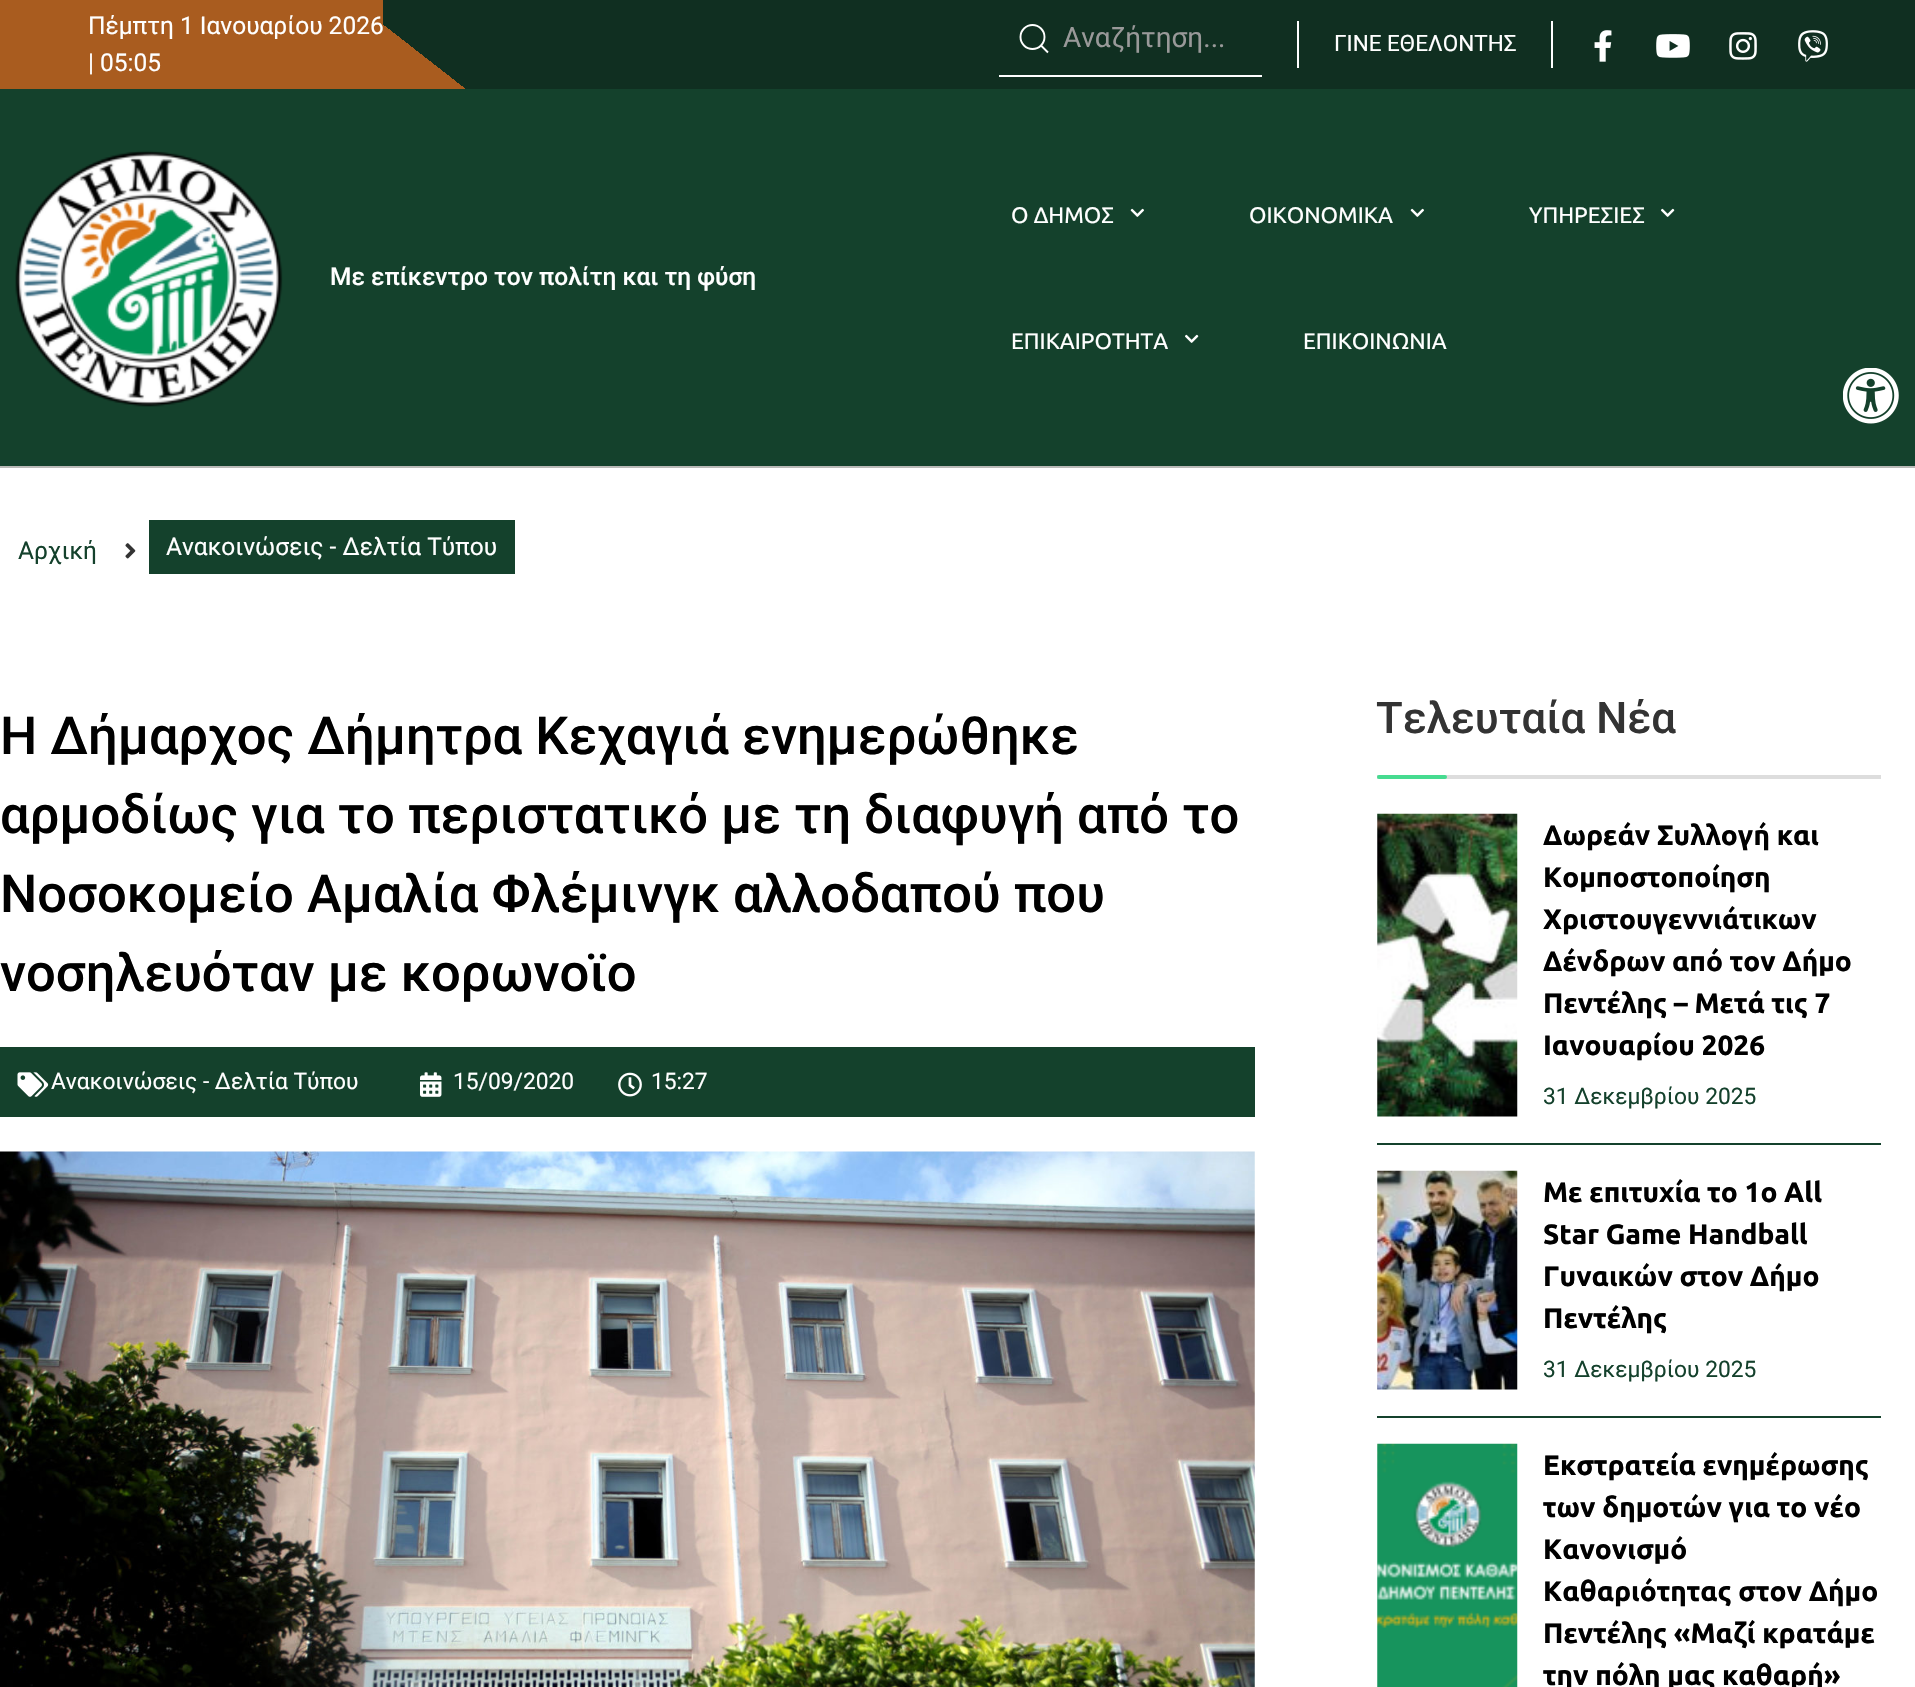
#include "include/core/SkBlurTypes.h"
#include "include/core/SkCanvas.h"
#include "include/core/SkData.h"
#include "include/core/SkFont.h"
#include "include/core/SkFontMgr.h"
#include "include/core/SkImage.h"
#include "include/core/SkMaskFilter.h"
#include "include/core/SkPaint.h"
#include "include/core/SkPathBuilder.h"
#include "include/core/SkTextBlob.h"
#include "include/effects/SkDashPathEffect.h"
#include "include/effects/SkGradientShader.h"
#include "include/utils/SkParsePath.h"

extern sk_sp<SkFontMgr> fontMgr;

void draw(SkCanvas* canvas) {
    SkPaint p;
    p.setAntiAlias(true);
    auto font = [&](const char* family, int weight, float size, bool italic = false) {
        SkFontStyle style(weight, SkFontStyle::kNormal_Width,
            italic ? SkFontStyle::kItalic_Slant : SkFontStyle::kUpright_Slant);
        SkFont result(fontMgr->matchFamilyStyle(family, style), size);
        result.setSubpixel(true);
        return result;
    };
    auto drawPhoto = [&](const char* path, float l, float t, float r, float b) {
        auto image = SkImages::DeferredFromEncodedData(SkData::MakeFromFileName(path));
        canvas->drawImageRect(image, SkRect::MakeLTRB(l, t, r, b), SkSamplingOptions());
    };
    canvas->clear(0xFFFFFFFF);
    p.setColor(0xFFA95C1F);
    canvas->drawRect(SkRect::MakeLTRB(0, 0, 383, 89), p);
    auto font1 = font("Roboto", 400, 24.5f);
    p.setColor(0xFFFFFFFF);
    canvas->drawString("Πέμπτη 1 Ιανουαρίου 2026", 88, 34, font1, p);
    canvas->drawString("| 05:05", 88, 71, font1, p);
    {
        const SkColor colors[] = {0xFF102F21, 0xFFA95C1F};
        const float stops[] = {0.95f, 0.95f};
        const SkPoint ends[] = {{1462, -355}, {838, 444}};
        p.setShader(SkGradientShader::MakeLinear(ends, colors, stops, 2, SkTileMode::kClamp));
        p.setAlpha(255);
    }
    canvas->drawRect(SkRect::MakeLTRB(383, 0, 1915, 89), p);
    p.setStyle(SkPaint::kStroke_Style);
    p.setStrokeWidth(1.9f);
    p.setShader(nullptr);
    p.setColor(0xFFFFFFFF);
    canvas->drawCircle(1032.5f, 37, 12, p);
    canvas->drawPath(SkPathBuilder().moveTo(1041, 45.5f).lineTo(1048, 52.5f).close().detach(), p);
    p.setStyle(SkPaint::kFill_Style);
    canvas->drawRect(SkRect::MakeLTRB(999, 75, 1262, 77), p);
    auto font2 = font("Roboto", 400, 28);
    p.setColor(0xFF999999);
    canvas->drawString("Αναζήτηση...", 1063, 47, font2, p);
    p.setColor(0xFFFFFFFF);
    canvas->drawRect(SkRect::MakeLTRB(1551, 21, 1553, 68), p);
    canvas->drawRect(SkRect::MakeLTRB(1297, 21, 1299, 68), p);
    auto font3 = font("Roboto", 400, 22.5f);
    canvas->drawString("ΓΙΝΕ ΕΘΕΛΟΝΤΗΣ", 1334, 51, font3, p);
    drawPhoto("media/1.png", 1594, 30, 1612, 62);
    drawPhoto("media/2.png", 1656, 34, 1690, 58);
    drawPhoto("media/3.png", 1729, 32, 1757, 60);
    drawPhoto("media/4.png", 1798, 30, 1828, 62);
    p.setColor(0xFF14412C);
    canvas->drawRect(SkRect::MakeLTRB(0, 89, 1915, 466), p);
    p.setColor(0xFFB9B9B7);
    canvas->drawRect(SkRect::MakeLTRB(0, 466, 1915, 468), p);
    drawPhoto("media/5.png", 15, 150, 283, 407);
    auto font4 = font("Roboto", 500, 24.5f);
    p.setColor(0xFFFFFFFF);
    canvas->drawString("Με επίκεντρο τον πολίτη και τη φύση", 330, 285, font4, p);
    auto font5 = font("Ubuntu", 400, 22.5f);
    canvas->drawString("Ο ΔΗΜΟΣ", 1011, 223, font5, p);
    drawPhoto("media/6.png", 1130, 208, 1144, 217);
    canvas->drawString("ΟΙΚΟΝΟΜΙΚΑ", 1249, 223, font5, p);
    drawPhoto("media/6.png", 1410, 208, 1424, 217);
    canvas->drawString("ΥΠΗΡΕΣΙΕΣ", 1529, 223, font5, p);
    drawPhoto("media/7.png", 1661, 208, 1675, 217);
    canvas->drawString("ΕΠΙΚΑΙΡΟΤΗΤΑ", 1011, 349, font5, p);
    drawPhoto("media/7.png", 1185, 334, 1199, 343);
    canvas->drawString("ΕΠΙΚΟΙΝΩΝΙΑ", 1303, 349, font5, p);
    drawPhoto("media/8.png", 1843, 368, 1899, 424);
    p.setColor(0xFF14412C);
    canvas->drawString("Αρχική", 18, 559, font1, p);
    drawPhoto("media/9.png", 125, 543, 136, 559);
    canvas->drawRect(SkRect::MakeLTRB(149, 520, 515, 574), p);
    p.setColor(0xFFFFFFFF);
    canvas->drawString("Ανακοινώσεις - Δελτία Τύπου", 166, 555, font1, p);
    auto font6 = font("Roboto", 500, 52.5f);
    p.setColor(0xFF000000);
    {
        const struct { const char* s; float x, y; } items[] = {
            {"Η Δήμαρχος Δήμητρα Κεχαγιά ενημερώθηκε", 0, 754},
            {"αρμοδίως για το περιστατικό με τη διαφυγή από το", 0, 833},
            {"Νοσοκομείο Αμαλία Φλέμινγκ αλλοδαπού που", 0, 912},
            {"νοσηλευόταν με κορωνοϊο", 0, 991},
        };
        for (auto [s, x, y] : items) {
            canvas->drawString(s, x, y, font6, p);
        }
    }
    p.setColor(0xFF14412C);
    canvas->drawRect(SkRect::MakeLTRB(0, 1047, 1255, 1117), p);
    drawPhoto("media/10.png", 17, 1072, 49, 1097);
    auto font7 = font("Roboto", 400, 22.75f);
    p.setColor(0xFFFFFFFF);
    canvas->drawString("Ανακοινώσεις - Δελτία Τύπου", 51, 1089, font7, p);
    drawPhoto("media/11.png", 420, 1072, 442, 1097);
    canvas->drawString("15/09/2020", 453, 1089, font7, p);
    drawPhoto("media/12.png", 618, 1072, 642, 1097);
    canvas->drawString("15:27", 651, 1089, font7, p);
    drawPhoto("media/13.png", 0, 1151, 1255, 1687);
    auto font8 = font("Roboto", 500, 43.75f);
    p.setColor(0xFF333333);
    canvas->drawString("Τελευταία Νέα", 1376, 733, font8, p);
    p.setColor(0xFFDDDDDD);
    canvas->drawRect(SkRect::MakeLTRB(1377, 775, 1881, 779), p);
    p.setColor(0xFF46DB90);
    canvas->drawRoundRect(SkRect::MakeLTRB(1377, 775, 1447, 779), 2, 2, p);
    p.setColor(0xFF14412C);
    canvas->drawRect(SkRect::MakeLTRB(1377, 1143, 1881, 1145), p);
    drawPhoto("media/14.png", 1377, 813, 1518, 1117);
    auto font9 = font("Ubuntu", 700, 28);
    p.setColor(0xFF000000);
    {
        const struct { const char* s; float x, y; } items[] = {
            {"Δωρεάν Συλλογή και", 1543, 845},
            {"Κομποστοποίηση", 1543, 887},
            {"Χριστουγεννιάτικων", 1543, 929},
            {"Δένδρων από τον Δήμο", 1543, 971},
            {"Πεντέλης – Μετά τις 7", 1543, 1013},
            {"Ιανουαρίου 2026", 1543, 1055},
        };
        for (auto [s, x, y] : items) {
            canvas->drawString(s, x, y, font9, p);
        }
    }
    p.setColor(0xFF14412C);
    canvas->drawString("31 Δεκεμβρίου 2025", 1543, 1104, font7, p);
    canvas->drawRect(SkRect::MakeLTRB(1377, 1416, 1881, 1418), p);
    drawPhoto("media/15.png", 1377, 1170, 1518, 1390);
    p.setColor(0xFF000000);
    {
        const struct { const char* s; float x, y; } items[] = {
            {"Με επιτυχία το 1ο All", 1543, 1202},
            {"Star Game Handball", 1543, 1244},
            {"Γυναικών στον Δήμο", 1543, 1286},
            {"Πεντέλης", 1543, 1328},
        };
        for (auto [s, x, y] : items) {
            canvas->drawString(s, x, y, font9, p);
        }
    }
    p.setColor(0xFF14412C);
    canvas->drawString("31 Δεκεμβρίου 2025", 1543, 1377, font7, p);
    drawPhoto("media/16.png", 1377, 1443, 1518, 1687);
    p.setColor(0xFF000000);
    {
        const struct { const char* s; float x, y; } items[] = {
            {"Eκστρατεία ενημέρωσης", 1543, 1475},
            {"των δημοτών για το νέο", 1543, 1517},
            {"Κανονισμό", 1543, 1559},
            {"Καθαριότητας στον Δήμο", 1543, 1601},
            {"Πεντέλης «Μαζί κρατάμε", 1543, 1643},
            {"την πόλη μας καθαρή»", 1543, 1685},
        };
        for (auto [s, x, y] : items) {
            canvas->drawString(s, x, y, font9, p);
        }
    }
}
